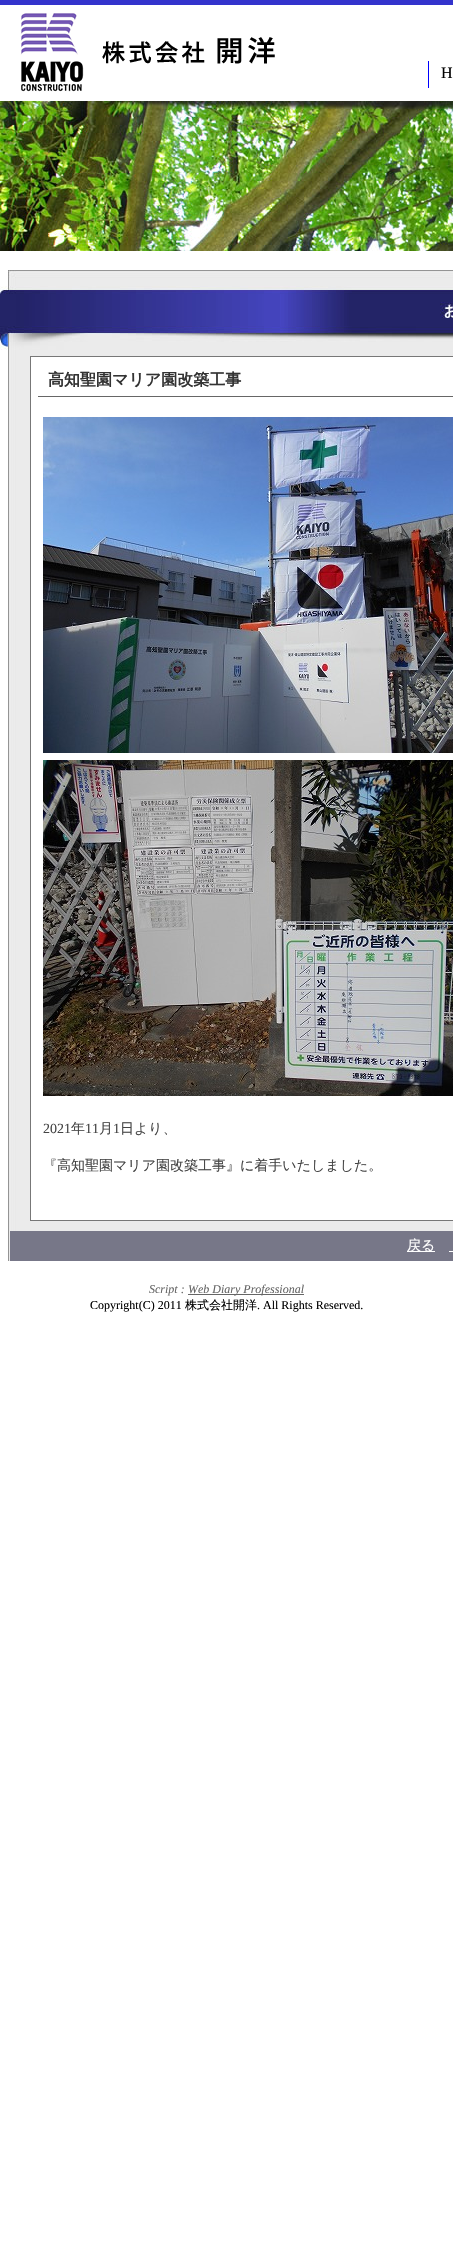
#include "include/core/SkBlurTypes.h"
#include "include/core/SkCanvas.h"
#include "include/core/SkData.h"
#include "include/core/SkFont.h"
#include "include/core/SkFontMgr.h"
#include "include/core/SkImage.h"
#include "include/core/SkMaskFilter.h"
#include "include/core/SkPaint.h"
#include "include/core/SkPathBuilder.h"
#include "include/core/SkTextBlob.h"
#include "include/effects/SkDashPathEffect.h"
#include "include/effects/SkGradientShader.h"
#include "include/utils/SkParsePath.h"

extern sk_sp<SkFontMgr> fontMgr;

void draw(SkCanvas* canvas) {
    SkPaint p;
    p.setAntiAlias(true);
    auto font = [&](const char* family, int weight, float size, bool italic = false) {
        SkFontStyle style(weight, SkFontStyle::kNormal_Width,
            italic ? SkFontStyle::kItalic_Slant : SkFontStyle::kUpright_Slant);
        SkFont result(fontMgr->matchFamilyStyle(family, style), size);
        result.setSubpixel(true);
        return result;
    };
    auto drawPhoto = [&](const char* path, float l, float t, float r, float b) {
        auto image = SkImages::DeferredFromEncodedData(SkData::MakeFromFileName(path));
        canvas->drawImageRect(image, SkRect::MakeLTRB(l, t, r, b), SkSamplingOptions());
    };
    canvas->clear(0xFFFFFFFF);
    p.setColor(0xFF3333CC);
    canvas->drawRect(SkRect::MakeLTRB(0, 0, 453, 5), p);
    drawPhoto("media/1.png", 20, 13, 275, 92);
    p.setColor(0xFF0000FF);
    canvas->drawRect(SkRect::MakeLTRB(428, 61, 429, 88), p);
    auto font1 = font("Liberation Serif", 400, 16);
    p.setColor(0xFF000000);
    canvas->drawString("H", 441, 78, font1, p);
    drawPhoto("media/2.png", 0, 101, 453, 251);
    drawPhoto("media/3.png", 8, 350, 453, 1261);
    drawPhoto("media/4.png", 0, 270, 453, 350);
    p.setColor(0xFFFFFFFF);
    canvas->drawRect(SkRect::MakeLTRB(30.5f, 356.5f, 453.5f, 1220.5f), p);
    p.setStyle(SkPaint::kStroke_Style);
    p.setStrokeWidth(1);
    p.setColor(0xFF777777);
    canvas->drawRect(SkRect::MakeLTRB(30.5f, 356.5f, 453.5f, 1220.5f), p);
    p.setStyle(SkPaint::kFill_Style);
    p.setColor(0xFF666666);
    canvas->drawRect(SkRect::MakeLTRB(38, 396, 453, 397), p);
    auto font2 = font("WenQuanYi Zen Hei", 700, 16);
    p.setColor(0xFF333333);
    canvas->drawString("高知聖園マリア園改築工事", 48, 385, font2, p);
    drawPhoto("media/5.png", 43, 417, 453, 753);
    drawPhoto("media/6.png", 43, 760, 453, 1096);
    auto font3 = font("Liberation Serif", 400, 14);
    p.setColor(0xFF444444);
    canvas->drawString("2021", 43, 1133, font3, p);
    auto font4 = font("WenQuanYi Zen Hei", 500, 14);
    canvas->drawString("年", 71, 1133, font4, p);
    canvas->drawString("11", 85, 1133, font3, p);
    canvas->drawString("月", 99, 1133, font4, p);
    canvas->drawString("1", 113, 1133, font3, p);
    canvas->drawString("日より、", 120, 1133, font4, p);
    canvas->drawString("『高知聖園マリア園改築工事』に着手いたしました。", 43, 1170, font4, p);
    p.setColor(0xFF777788);
    canvas->drawRect(SkRect::MakeLTRB(10, 1231, 453, 1261), p);
    p.setColor(0xFFFFFFFF);
    canvas->drawRect(SkRect::MakeLTRB(407, 1251, 435, 1252), p);
    canvas->drawString("戻る", 407, 1250, font4, p);
    canvas->drawRect(SkRect::MakeLTRB(449, 1251, 453, 1252), p);
    auto font5 = font("Liberation Serif", 400, 12, true);
    p.setColor(0xFF666666);
    canvas->drawString("Script :", 149, 1293, font5, p);
    canvas->drawRect(SkRect::MakeLTRB(188, 1294, 304, 1295), p);
    canvas->drawString("Web Diary Professional", 188, 1293, font5, p);
    auto font6 = font("Liberation Serif", 400, 12);
    p.setColor(0xFF000000);
    canvas->drawString("Copyright(C) 2011", 90, 1309, font6, p);
    auto font7 = font("WenQuanYi Zen Hei", 500, 12);
    canvas->drawString("株式会社開洋", 185, 1309, font7, p);
    canvas->drawString(". All Rights Reserved.", 257, 1309, font6, p);
}
